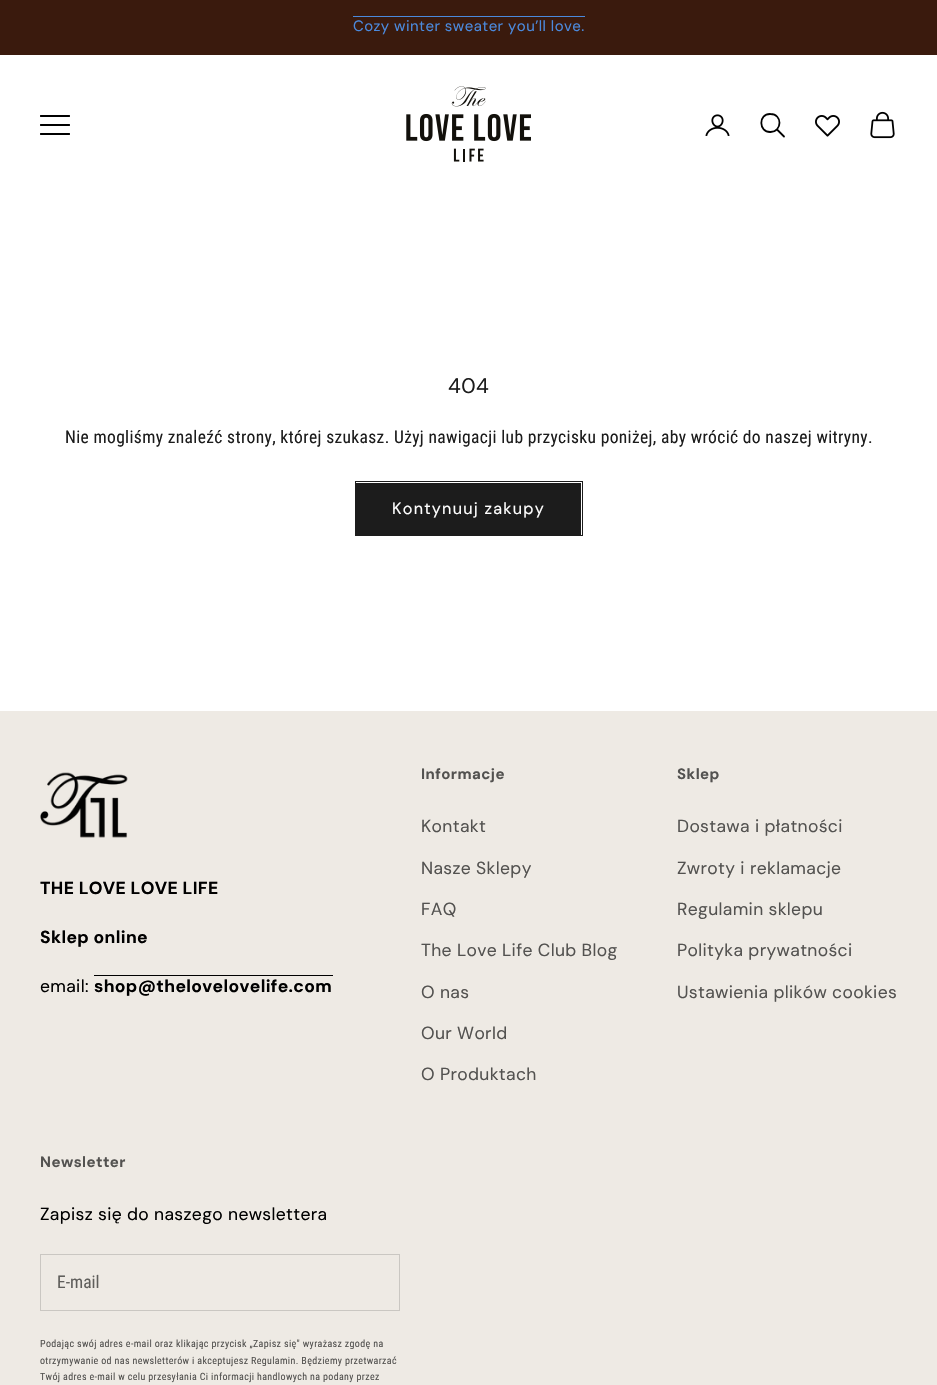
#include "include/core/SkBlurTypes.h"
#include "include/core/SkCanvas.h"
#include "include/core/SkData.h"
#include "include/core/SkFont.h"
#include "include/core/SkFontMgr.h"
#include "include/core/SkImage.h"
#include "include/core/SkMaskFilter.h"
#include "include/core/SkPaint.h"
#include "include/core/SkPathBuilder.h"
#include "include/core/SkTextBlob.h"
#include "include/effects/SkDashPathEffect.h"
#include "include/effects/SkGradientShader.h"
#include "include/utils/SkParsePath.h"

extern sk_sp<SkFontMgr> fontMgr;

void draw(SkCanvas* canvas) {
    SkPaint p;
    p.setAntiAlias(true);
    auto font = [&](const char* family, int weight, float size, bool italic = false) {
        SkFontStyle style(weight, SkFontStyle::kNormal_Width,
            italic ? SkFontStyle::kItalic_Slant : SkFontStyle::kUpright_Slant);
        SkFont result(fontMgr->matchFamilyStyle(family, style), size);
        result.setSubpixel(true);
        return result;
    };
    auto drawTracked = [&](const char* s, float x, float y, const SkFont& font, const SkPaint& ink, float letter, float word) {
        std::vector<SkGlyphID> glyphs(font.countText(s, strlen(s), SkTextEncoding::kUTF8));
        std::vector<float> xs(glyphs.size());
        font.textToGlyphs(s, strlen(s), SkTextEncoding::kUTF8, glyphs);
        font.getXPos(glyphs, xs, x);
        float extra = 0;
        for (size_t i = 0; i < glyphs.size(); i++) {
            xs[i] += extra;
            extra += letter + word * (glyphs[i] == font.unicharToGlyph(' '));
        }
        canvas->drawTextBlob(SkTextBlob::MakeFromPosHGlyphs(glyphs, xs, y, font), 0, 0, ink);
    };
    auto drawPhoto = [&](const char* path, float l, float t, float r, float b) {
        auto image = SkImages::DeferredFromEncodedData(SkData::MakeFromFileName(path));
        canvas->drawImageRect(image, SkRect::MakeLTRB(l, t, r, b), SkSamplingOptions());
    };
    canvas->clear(0xFFFFFFFF);
    p.setColor(0xFF3A1A0D);
    canvas->drawRect(SkRect::MakeLTRB(0, 0, 937, 55), p);
    auto font1 = font("DM Sans", 400, 15);
    p.setColor(0xFF4B89DC);
    drawTracked("Cozy winter sweater you’ll love.", 353, 31, font1, p, 0.45f, 0);
    canvas->drawRect(SkRect::MakeLTRB(353, 16, 585, 17), p);
    p.setStyle(SkPaint::kStroke_Style);
    p.setStrokeWidth(1.8f);
    p.setStrokeCap(SkPaint::kSquare_Cap);
    p.setColor(0xFF000000);
    canvas->drawPath(SkPathBuilder().moveTo(41, 134).lineTo(69, 134).moveTo(41, 125).lineTo(69, 125).moveTo(41, 116).lineTo(69, 116).detach(), p);
    drawPhoto("media/1.png", 406, 86, 531, 162);
    drawPhoto("media/2.png", 705, 114, 730, 136);
    p.setStrokeCap(SkPaint::kButt_Cap);
    canvas->drawPath(SkPathBuilder().moveTo(770.5f, 114).cubicTo(758, 113.5f, 758.5f, 132.5f, 770.5f, 132).cubicTo(782.5f, 131.5f, 782.5f, 114, 770.5f, 114).close().detach(), p);
    p.setStrokeCap(SkPaint::kRound_Cap);
    canvas->drawPath(SkPathBuilder().moveTo(777.5f, 130).lineTo(784, 136.5f).detach(), p);
    drawPhoto("media/3.png", 815, 115, 840, 137);
    drawPhoto("media/4.png", 870, 111, 895, 139);
    auto font2 = font("DM Sans", 400, 21);
    p.setStyle(SkPaint::kFill_Style);
    p.setColor(0xFF1C1C1C);
    drawTracked("404", 448, 393, font2, p, 0.5f, 0);
    auto font3 = font("Roboto Condensed", 400, 17.5f);
    drawTracked("Nie mogliśmy znaleźć strony, której szukasz. Użyj nawigacji lub przycisku poniżej, aby wrócić do naszej witryny.", 65, 443, font3, p, 0.35f, 0);
    canvas->drawRect(SkRect::MakeLTRB(356, 483, 581, 535), p);
    p.setStyle(SkPaint::kStroke_Style);
    p.setStrokeWidth(1);
    p.setStrokeCap(SkPaint::kButt_Cap);
    canvas->drawRect(SkRect::MakeLTRB(355.5f, 481.5f, 582.5f, 535.5f), p);
    auto font4 = font("DM Sans", 400, 16.25f);
    p.setStyle(SkPaint::kFill_Style);
    p.setColor(0xFFFFFFFF);
    drawTracked("Kontynuuj zakupy", 392, 514, font4, p, 1.25f, 0);
    p.setColor(0xFFEEEAE4);
    canvas->drawRect(SkRect::MakeLTRB(0, 711, 937, 1385), p);
    drawPhoto("media/5.png", 40, 772, 128, 838);
    auto font5 = font("DM Sans", 700, 17.5f);
    p.setColor(0xFF000000);
    drawTracked("THE LOVE LOVE LIFE", 40, 894, font5, p, 0.35f, 0);
    drawTracked("Sklep online", 40, 943, font5, p, 0.35f, 0);
    auto font6 = font("DM Sans", 400, 17.5f);
    drawTracked("email:", 40, 992, font6, p, 0.35f, 0);
    drawTracked("shop@thelovelovelife.com", 94, 992, font5, p, 0.35f, 0);
    canvas->drawRect(SkRect::MakeLTRB(94, 975, 333, 976), p);
    auto font7 = font("DM Sans", 700, 15);
    p.setColor(0xFF535250);
    drawTracked("Informacje", 421, 779, font7, p, 0.45f, 0);
    {
        const struct { const char* s; float x, y; } items[] = {
            {"Kontakt", 421, 832},
            {"Nasze Sklepy", 421, 874},
            {"FAQ", 421, 915},
            {"The Love Life Club Blog", 421, 956},
            {"O nas", 421, 998},
            {"Our World", 421, 1039},
            {"O Produktach", 421, 1080},
        };
        for (auto [s, x, y] : items) {
            drawTracked(s, x, y, font6, p, 0.35f, 0);
        }
    }
    drawTracked("Sklep", 677, 779, font7, p, 0.45f, 0);
    {
        const struct { const char* s; float x, y; } items[] = {
            {"Dostawa i płatności", 677, 832},
            {"Zwroty i reklamacje", 677, 874},
            {"Regulamin sklepu", 677, 915},
            {"Polityka prywatności", 677, 956},
            {"Ustawienia plików cookies", 677, 998},
        };
        for (auto [s, x, y] : items) {
            drawTracked(s, x, y, font6, p, 0.35f, 0);
        }
    }
    drawTracked("Newsletter", 40, 1167, font7, p, 0.45f, 0);
    p.setColor(0xFF000000);
    drawTracked("Zapisz się do naszego newslettera", 40, 1220, font6, p, 0.35f, 0);
    p.setStyle(SkPaint::kStroke_Style);
    p.setColor(0xFFCAC7C2);
    canvas->drawRect(SkRect::MakeLTRB(40.5f, 1254.5f, 399.5f, 1310.5f), p);
    p.setStyle(SkPaint::kFill_Style);
    p.setColor(0xFF5F5E5B);
    canvas->drawString("E-mail", 57, 1288, font3, p);
    auto font8 = font("Roboto Condensed", 400, 10);
    p.setColor(0xFF535250);
    {
        const struct { const char* s; float x, y; } items[] = {
            {"Podając swój adres e-mail oraz klikając przycisk „Zapisz się\" wyrażasz zgodę na", 40, 1347},
            {"otrzymywanie od nas newsletterów i akceptujesz Regulamin. Będziemy przetwarzać", 40, 1364},
            {"Twój adres e-mail w celu przesyłania Ci informacji handlowych na podany przez", 40, 1380},
        };
        for (auto [s, x, y] : items) {
            drawTracked(s, x, y, font8, p, 0.35f, 0);
        }
    }
}
